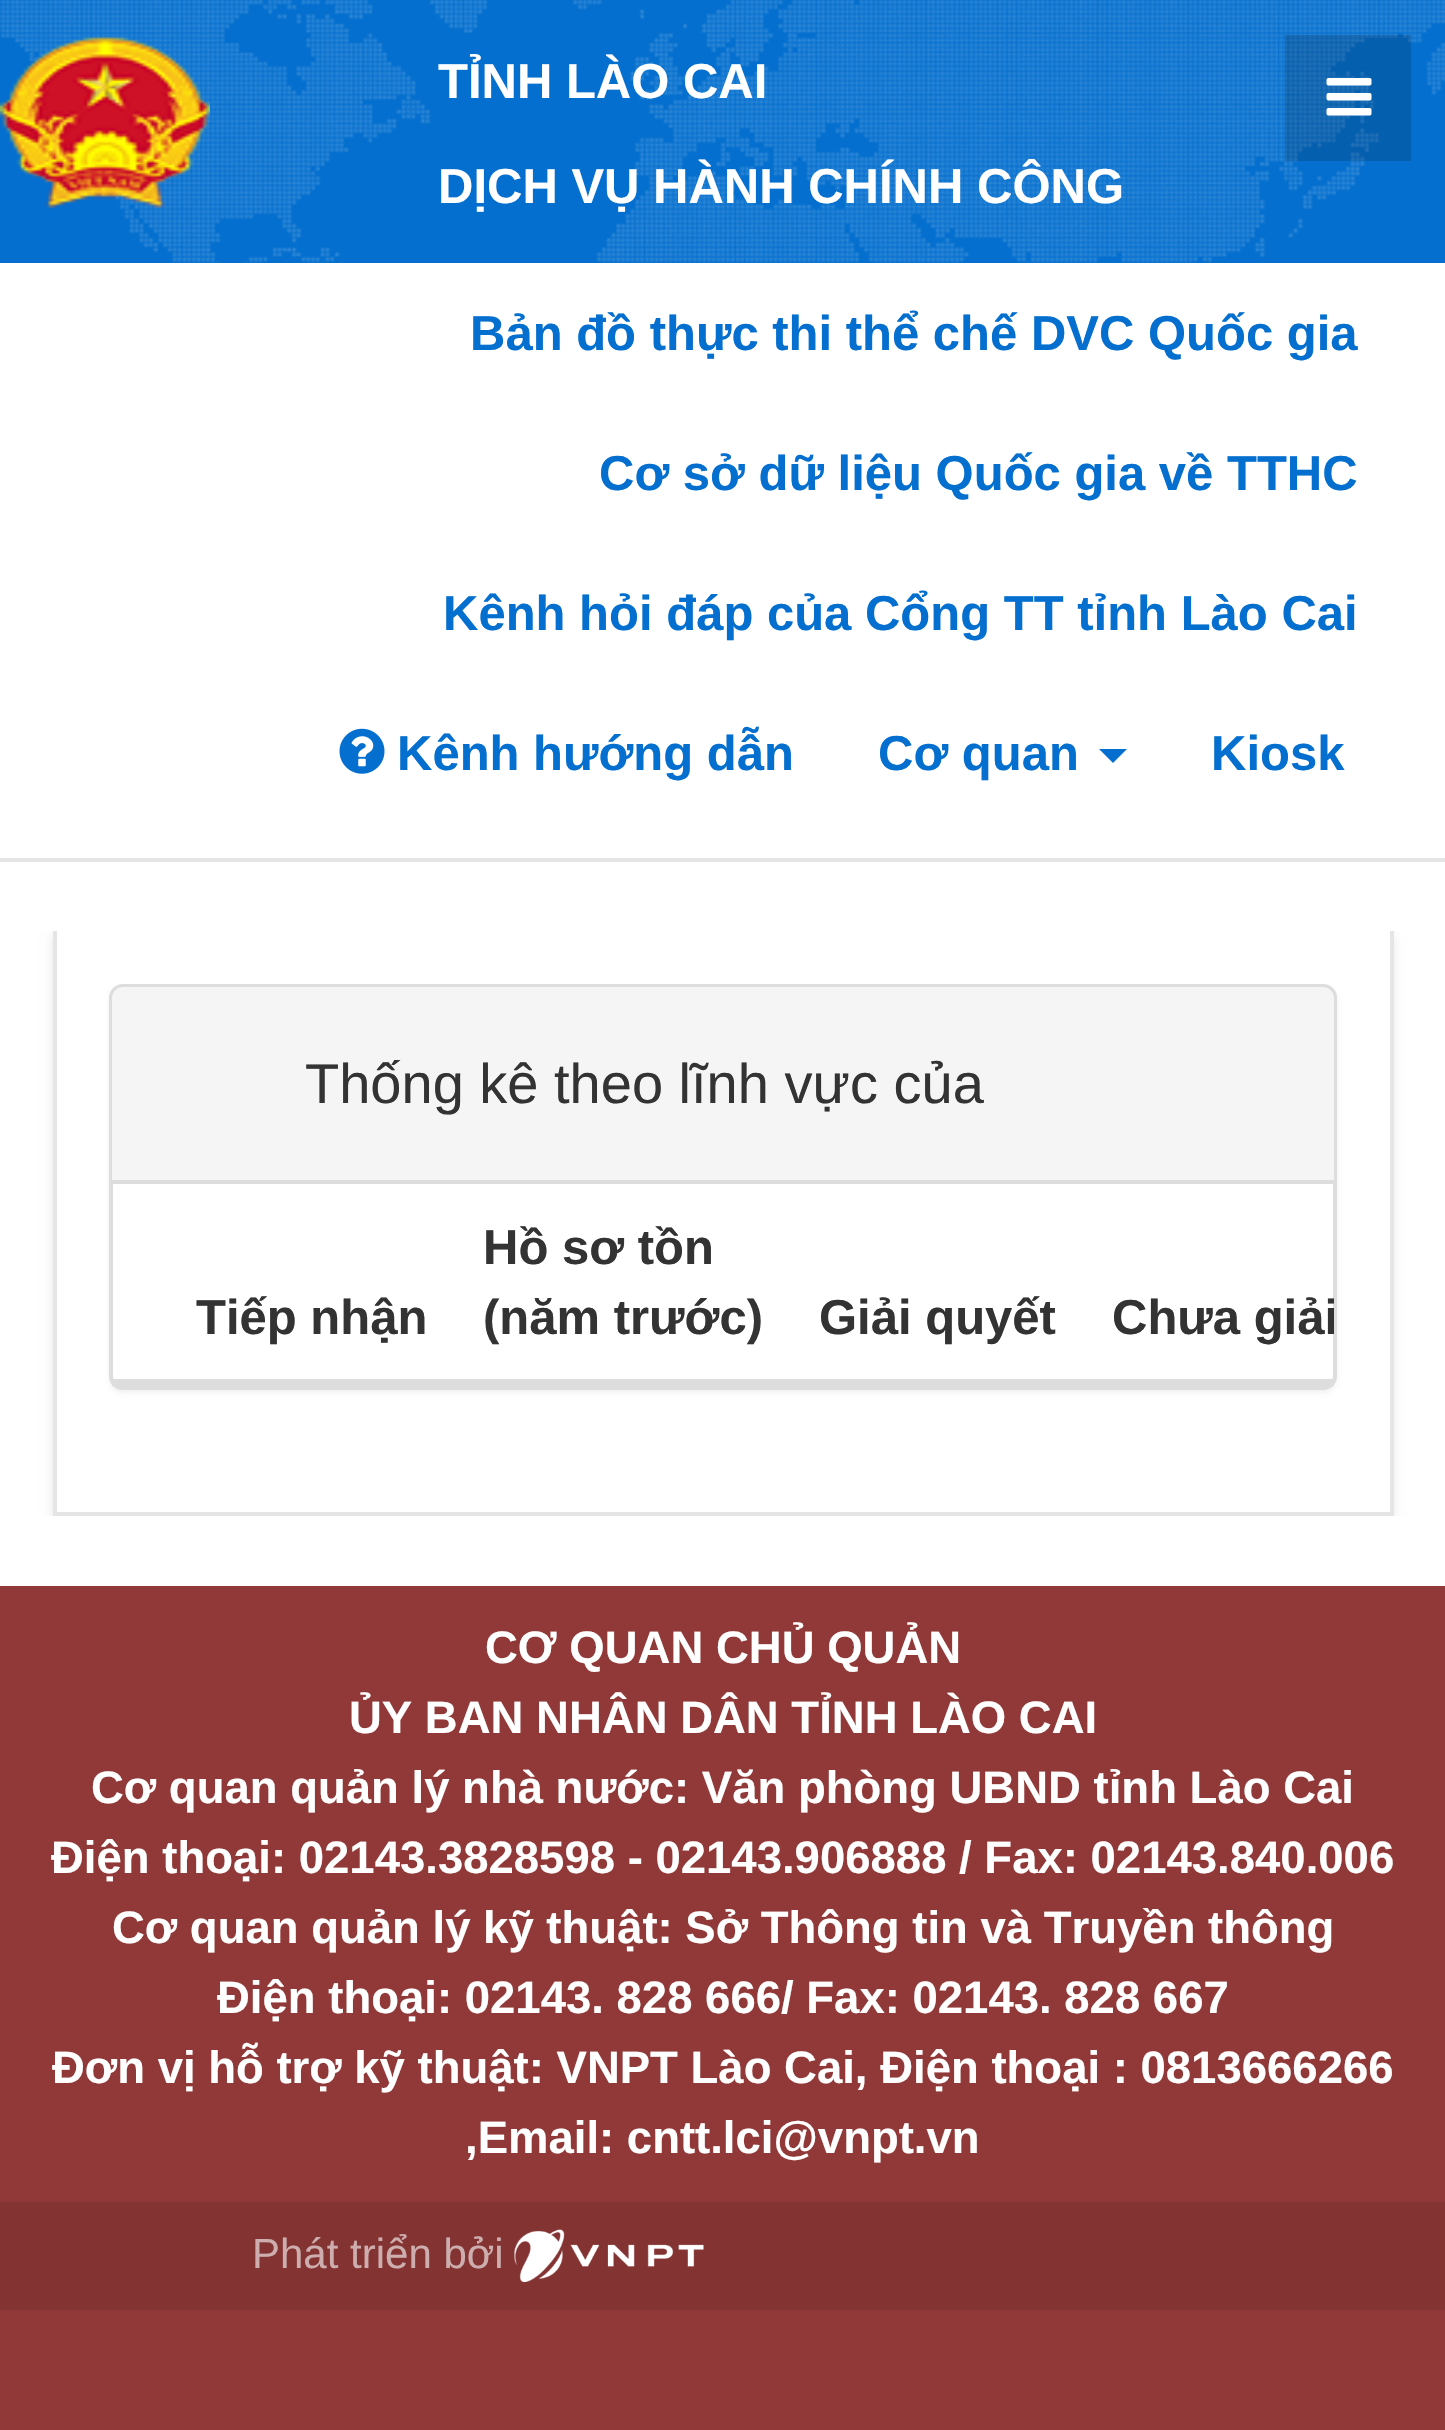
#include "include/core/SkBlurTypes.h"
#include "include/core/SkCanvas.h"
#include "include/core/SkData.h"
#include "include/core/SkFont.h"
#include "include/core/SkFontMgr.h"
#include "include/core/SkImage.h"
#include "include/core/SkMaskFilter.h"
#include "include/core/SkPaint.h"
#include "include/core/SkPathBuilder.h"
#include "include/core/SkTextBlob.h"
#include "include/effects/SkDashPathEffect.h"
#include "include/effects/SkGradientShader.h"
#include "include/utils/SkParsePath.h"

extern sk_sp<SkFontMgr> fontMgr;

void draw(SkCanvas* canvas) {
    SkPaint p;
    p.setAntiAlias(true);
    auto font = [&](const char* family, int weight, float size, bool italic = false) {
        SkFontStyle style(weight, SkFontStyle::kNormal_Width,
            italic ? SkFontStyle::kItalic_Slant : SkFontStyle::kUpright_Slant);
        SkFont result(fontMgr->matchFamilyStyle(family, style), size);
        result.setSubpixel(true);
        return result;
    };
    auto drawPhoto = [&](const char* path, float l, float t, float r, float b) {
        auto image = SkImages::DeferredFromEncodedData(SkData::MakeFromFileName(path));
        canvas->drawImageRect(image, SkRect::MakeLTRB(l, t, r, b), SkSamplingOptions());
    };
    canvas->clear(0xFFFFFFFF);
    p.setColor(0xFF046FCE);
    canvas->drawRect(SkRect::MakeLTRB(0, 0, 1445, 263), p);
    drawPhoto("media/1.png", 0, 0, 1445, 263);
    drawPhoto("media/2.png", 0, 37, 210, 209);
    auto font1 = font("Liberation Sans", 700, 49);
    p.setColor(0xFFFFFFFF);
    canvas->drawString("TỈNH LÀO CAI", 438, 98, font1, p);
    canvas->drawString("DỊCH VỤ HÀNH CHÍNH CÔNG", 438, 203, font1, p);
    p.setColor(0x26000000);
    canvas->drawRect(SkRect::MakeLTRB(1285, 35, 1411, 161), p);
    drawPhoto("media/3.png", 1326, 78, 1372, 116);
    p.setColor(0xFFE5E5E5);
    canvas->drawRect(SkRect::MakeLTRB(0, 858, 1445, 862), p);
    p.setColor(0xFF046FCE);
    {
        const struct { const char* s; float x, y; } items[] = {
            {"Bản đồ thực thi thể chế DVC Quốc gia", 470, 350},
            {"Cơ sở dữ liệu Quốc gia về TTHC", 599, 490},
            {"Kênh hỏi đáp của Cổng TT tỉnh Lào Cai", 443, 630},
        };
        for (auto [s, x, y] : items) {
            canvas->drawString(s, x, y, font1, p);
        }
    }
    drawPhoto("media/4.png", 339, 728, 385, 774);
    canvas->drawString("Kênh hướng dẫn", 397, 770, font1, p);
    canvas->drawString("Cơ quan", 878, 770, font1, p);
    canvas->drawPath(SkPathBuilder().moveTo(1099, 749).lineTo(1127, 749).lineTo(1113, 763).close().detach(), p);
    canvas->drawString("Kiosk", 1211, 770, font1, p);
    canvas->save();
    canvas->clipRect(SkRect::MakeLTRB(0, 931, 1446, 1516));
    p.setColor(0x1A000000);
    p.setMaskFilter(SkMaskFilter::MakeBlur(kNormal_SkBlurStyle, 5));
    canvas->drawRect(SkRect::MakeLTRB(53, 935, 1393, 1519), p);
    p.setMaskFilter(nullptr);
    canvas->restore();
    {
        const struct { float l, t, r, b; SkColor color; } items[] = {
            {57, 931, 1390, 1512, 0xFFFFFFFF},
            {1390, 931, 1394, 1516, 0xFFE5E5E5},
            {53, 1512, 1393, 1516, 0xFFE5E5E5},
            {53, 931, 57, 1516, 0xFFE5E5E5},
        };
        for (auto [l, t, r, b, color] : items) {
            p.setColor(color);
            canvas->drawRect(SkRect::MakeLTRB(l, t, r, b), p);
        }
    }
    p.setColor(0x0D000000);
    p.setMaskFilter(SkMaskFilter::MakeBlur(kNormal_SkBlurStyle, 2));
    canvas->drawRoundRect(SkRect::MakeLTRB(109, 987, 1337, 1393), 14, 14, p);
    p.setMaskFilter(nullptr);
    p.setColor(0xFFFFFFFF);
    canvas->drawRoundRect(SkRect::MakeLTRB(111, 986, 1335, 1388), 12, 12, p);
    p.setStyle(SkPaint::kStroke_Style);
    p.setStrokeWidth(4);
    p.setColor(0xFFDDDDDD);
    canvas->drawRoundRect(SkRect::MakeLTRB(111, 986, 1335, 1388), 12, 12, p);
    p.setStyle(SkPaint::kFill_Style);
    p.setColor(0xFFF5F5F5);
    canvas->drawPath(SkPathBuilder().moveTo(123, 987).lineTo(1323, 987).cubicTo(1329, 987, 1334, 992, 1334, 998).lineTo(1334, 1183).lineTo(112, 1183).lineTo(112, 998).cubicTo(112, 992, 117, 987, 123, 987).close().detach(), p);
    p.setColor(0xFFDDDDDD);
    canvas->drawRect(SkRect::MakeLTRB(112, 1180, 1334, 1184), p);
    auto font2 = font("Liberation Sans", 400, 56);
    p.setColor(0xFF333333);
    canvas->drawString("Thống kê theo lĩnh vực của", 305, 1103, font2, p);
    {
        const struct { const char* s; float x, y; } items[] = {
            {"Tiếp nhận", 196, 1334},
            {"Hồ sơ tồn", 483, 1264},
            {"(năm trước)", 483, 1334},
            {"Giải quyết", 819, 1334},
        };
        for (auto [s, x, y] : items) {
            canvas->drawString(s, x, y, font1, p);
        }
    }
    p.setColor(0xFFDDDDDD);
    canvas->drawRect(SkRect::MakeLTRB(112, 1379, 1334, 1386), p);
    canvas->save();
    canvas->clipRect(SkRect::MakeLTRB(112, 1183, 1334, 1386));
    p.setColor(0xFF333333);
    canvas->drawString("Chưa giải", 1112, 1334, font1, p);
    canvas->restore();
    p.setColor(0xFF903938);
    canvas->drawRect(SkRect::MakeLTRB(0, 1586, 1445, 2430), p);
    auto font3 = font("Liberation Sans", 700, 45.5f);
    p.setColor(0xFFFFFFFF);
    {
        const struct { const char* s; float x, y; } items[] = {
            {"CƠ QUAN CHỦ QUẢN", 485, 1663},
            {"ỦY BAN NHÂN DÂN TỈNH LÀO CAI", 349, 1733},
            {"Cơ quan quản lý nhà nước: Văn phòng UBND tỉnh Lào Cai", 91, 1803},
            {"Điện thoại: 02143.3828598 - 02143.906888 / Fax: 02143.840.006", 51, 1873},
            {"Cơ quan quản lý kỹ thuật: Sở Thông tin và Truyền thông", 112, 1943},
            {"Điện thoại: 02143. 828 666/ Fax: 02143. 828 667", 217, 2013},
            {"Đơn vị hỗ trợ kỹ thuật: VNPT Lào Cai, Điện thoại : 0813666266", 52, 2083},
            {",Email: cntt.lci@vnpt.vn", 465, 2153},
        };
        for (auto [s, x, y] : items) {
            canvas->drawString(s, x, y, font3, p);
        }
    }
    p.setColor(0xFF823332);
    canvas->drawRect(SkRect::MakeLTRB(0, 2202, 1445, 2310), p);
    auto font4 = font("Liberation Sans", 400, 42);
    p.setColor(0xFFCDADAD);
    canvas->drawString("Phát triển bởi", 252, 2268, font4, p);
    drawPhoto("media/5.png", 514, 2229, 704, 2282);
}
